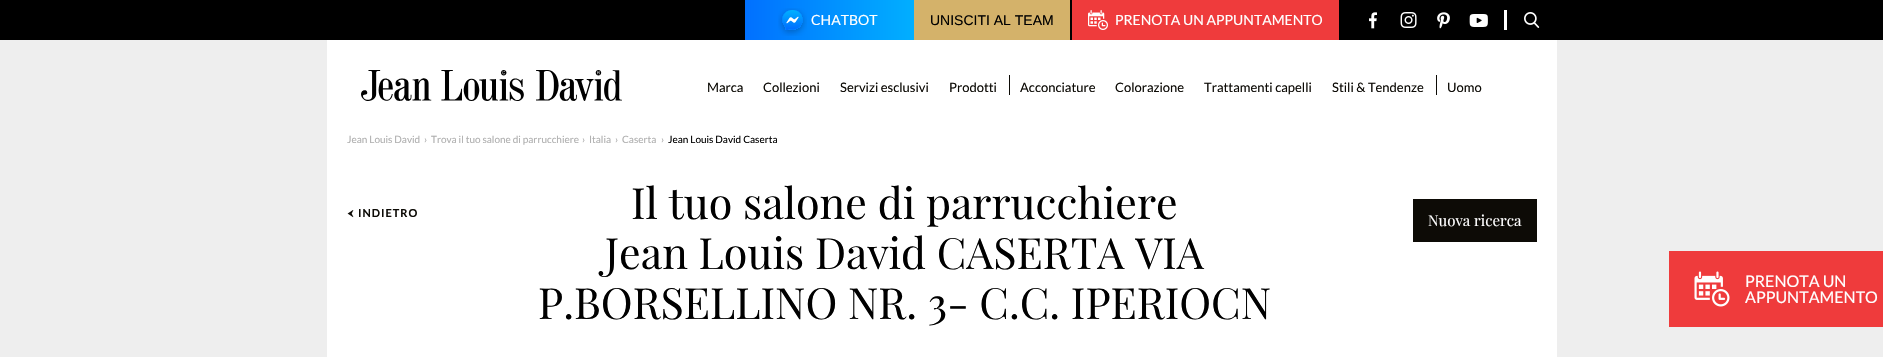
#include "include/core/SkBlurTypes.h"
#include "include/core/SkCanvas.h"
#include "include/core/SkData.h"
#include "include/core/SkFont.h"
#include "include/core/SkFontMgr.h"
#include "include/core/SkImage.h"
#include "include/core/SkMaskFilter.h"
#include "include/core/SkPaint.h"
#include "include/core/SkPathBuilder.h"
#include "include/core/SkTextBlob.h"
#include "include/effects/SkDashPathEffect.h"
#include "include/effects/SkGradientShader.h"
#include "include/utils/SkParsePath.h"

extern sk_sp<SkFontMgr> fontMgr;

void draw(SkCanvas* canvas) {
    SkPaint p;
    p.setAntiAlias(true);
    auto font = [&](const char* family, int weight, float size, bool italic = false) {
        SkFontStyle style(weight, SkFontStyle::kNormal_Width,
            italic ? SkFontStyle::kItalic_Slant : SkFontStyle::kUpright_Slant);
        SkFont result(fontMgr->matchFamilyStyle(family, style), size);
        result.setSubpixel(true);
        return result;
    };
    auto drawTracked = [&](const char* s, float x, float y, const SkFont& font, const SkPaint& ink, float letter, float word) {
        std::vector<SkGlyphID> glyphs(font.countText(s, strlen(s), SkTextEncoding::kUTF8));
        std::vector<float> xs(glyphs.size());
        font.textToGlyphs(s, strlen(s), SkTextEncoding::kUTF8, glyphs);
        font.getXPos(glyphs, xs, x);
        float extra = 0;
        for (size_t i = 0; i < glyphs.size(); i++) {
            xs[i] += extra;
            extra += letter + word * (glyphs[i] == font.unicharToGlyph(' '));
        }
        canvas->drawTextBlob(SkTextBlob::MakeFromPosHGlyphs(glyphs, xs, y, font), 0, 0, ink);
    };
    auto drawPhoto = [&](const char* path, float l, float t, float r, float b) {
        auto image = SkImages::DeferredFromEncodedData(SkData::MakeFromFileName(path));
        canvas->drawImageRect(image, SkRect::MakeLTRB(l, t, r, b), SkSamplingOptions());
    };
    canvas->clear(0xFFEEEEEE);
    p.setColor(0xFF000000);
    canvas->drawRect(SkRect::MakeLTRB(0, 0, 1883, 40), p);
    {
        const SkColor colors[] = {0xFF0170FF, 0xFF01AFFF};
        const float stops[] = {0.5f, 1};
        const SkPoint ends[] = {{575, 20}, {914, 20}};
        p.setShader(SkGradientShader::MakeLinear(ends, colors, stops, 2, SkTileMode::kClamp));
        p.setAlpha(255);
    }
    canvas->drawRect(SkRect::MakeLTRB(745, 0, 914, 40), p);
    drawPhoto("media/1.png", 778, 8, 807, 36);
    auto font1 = font("Lato", 400, 14);
    p.setShader(nullptr);
    p.setColor(0xFFFFFFFF);
    canvas->drawString("CHATBOT", 811, 25, font1, p);
    p.setColor(0xFFD4B26A);
    canvas->drawRect(SkRect::MakeLTRB(914, 0, 1070, 40), p);
    auto font2 = font("Liberation Sans", 400, 14);
    p.setColor(0xFF000000);
    canvas->drawString("UNISCITI AL TEAM", 930, 25, font2, p);
    p.setColor(0xFFEF3B3C);
    canvas->drawRect(SkRect::MakeLTRB(1072, 0, 1339, 40), p);
    drawPhoto("media/2.png", 1088, 10, 1108, 30);
    p.setColor(0xFFFFFFFF);
    canvas->drawString("PRENOTA UN APPUNTAMENTO", 1115, 25, font1, p);
    drawPhoto("media/3.png", 1369, 12, 1377, 29);
    drawPhoto("media/4.png", 1400, 12, 1417, 28);
    drawPhoto("media/5.png", 1437, 12, 1450, 29);
    drawPhoto("media/6.png", 1469, 14, 1488, 27);
    canvas->drawRect(SkRect::MakeLTRB(1504, 10, 1507, 30), p);
    drawPhoto("media/7.png", 1524, 12, 1540, 28);
    canvas->drawRect(SkRect::MakeLTRB(327, 40, 1557, 357), p);
    drawPhoto("media/8.png", 361, 70, 622, 101);
    auto font3 = font("Lato", 400, 13);
    p.setColor(0xFF0D0B06);
    {
        const struct { const char* s; float x, y; } items[] = {
            {"Marca", 707, 92},
            {"Collezioni", 763, 92},
            {"Servizi esclusivi", 840, 92},
            {"Prodotti", 949, 92},
        };
        for (auto [s, x, y] : items) {
            canvas->drawString(s, x, y, font3, p);
        }
    }
    canvas->drawRect(SkRect::MakeLTRB(1009, 75, 1010, 95), p);
    {
        const struct { const char* s; float x, y; } items[] = {
            {"Acconciature", 1020, 92},
            {"Colorazione", 1115, 92},
            {"Trattamenti capelli", 1204, 92},
            {"Stili & Tendenze", 1332, 92},
        };
        for (auto [s, x, y] : items) {
            canvas->drawString(s, x, y, font3, p);
        }
    }
    canvas->drawRect(SkRect::MakeLTRB(1436, 75, 1437, 95), p);
    canvas->drawString("Uomo", 1447, 92, font3, p);
    auto font4 = font("Lato", 400, 10);
    p.setColor(0xFFAFAFAF);
    {
        const struct { const char* s; float x, y; } items[] = {
            {"Jean Louis David", 347, 143},
            {"›", 424, 143},
            {"Trova il tuo salone di parrucchiere", 431, 143},
            {"›", 582, 143},
            {"Italia", 589, 143},
            {"›", 615, 143},
            {"Caserta", 622, 143},
            {"›", 661, 143},
        };
        for (auto [s, x, y] : items) {
            canvas->drawString(s, x, y, font4, p);
        }
    }
    p.setColor(0xFF000000);
    canvas->drawString("Jean Louis David Caserta", 668, 143, font4, p);
    drawPhoto("media/9.png", 347, 210, 354, 218);
    auto font5 = font("Lato", 700, 11);
    p.setColor(0xFF0D0B06);
    drawTracked("INDIETRO", 358, 217, font5, p, 1, 0);
    auto font6 = font("Playfair Display", 400, 43);
    p.setColor(0xFF000000);
    {
        const struct { const char* s; float x, y; } items[] = {
            {"Il tuo salone di parrucchiere", 631, 219},
            {"Jean Louis David CASERTA VIA", 605, 269},
            {"P.BORSELLINO NR. 3- C.C. IPERIOCN", 538, 319},
        };
        for (auto [s, x, y] : items) {
            canvas->drawString(s, x, y, font6, p);
        }
    }
    p.setColor(0xFF0D0B06);
    canvas->drawRect(SkRect::MakeLTRB(1413, 199, 1537, 242), p);
    auto font7 = font("Playfair Display", 400, 15);
    p.setColor(0xFFFFFFFF);
    canvas->drawString("Nuova ricerca", 1428, 226, font7, p);
    p.setColor(0xFFEF3B3C);
    canvas->drawRect(SkRect::MakeLTRB(1669, 251, 1883, 327), p);
    drawPhoto("media/10.png", 1694, 271, 1730, 307);
    auto font8 = font("Lato", 400, 16);
    p.setColor(0xFFFFFFFF);
    canvas->drawString("PRENOTA UN", 1745, 287, font8, p);
    canvas->drawString("APPUNTAMENTO", 1745, 303, font8, p);
}
